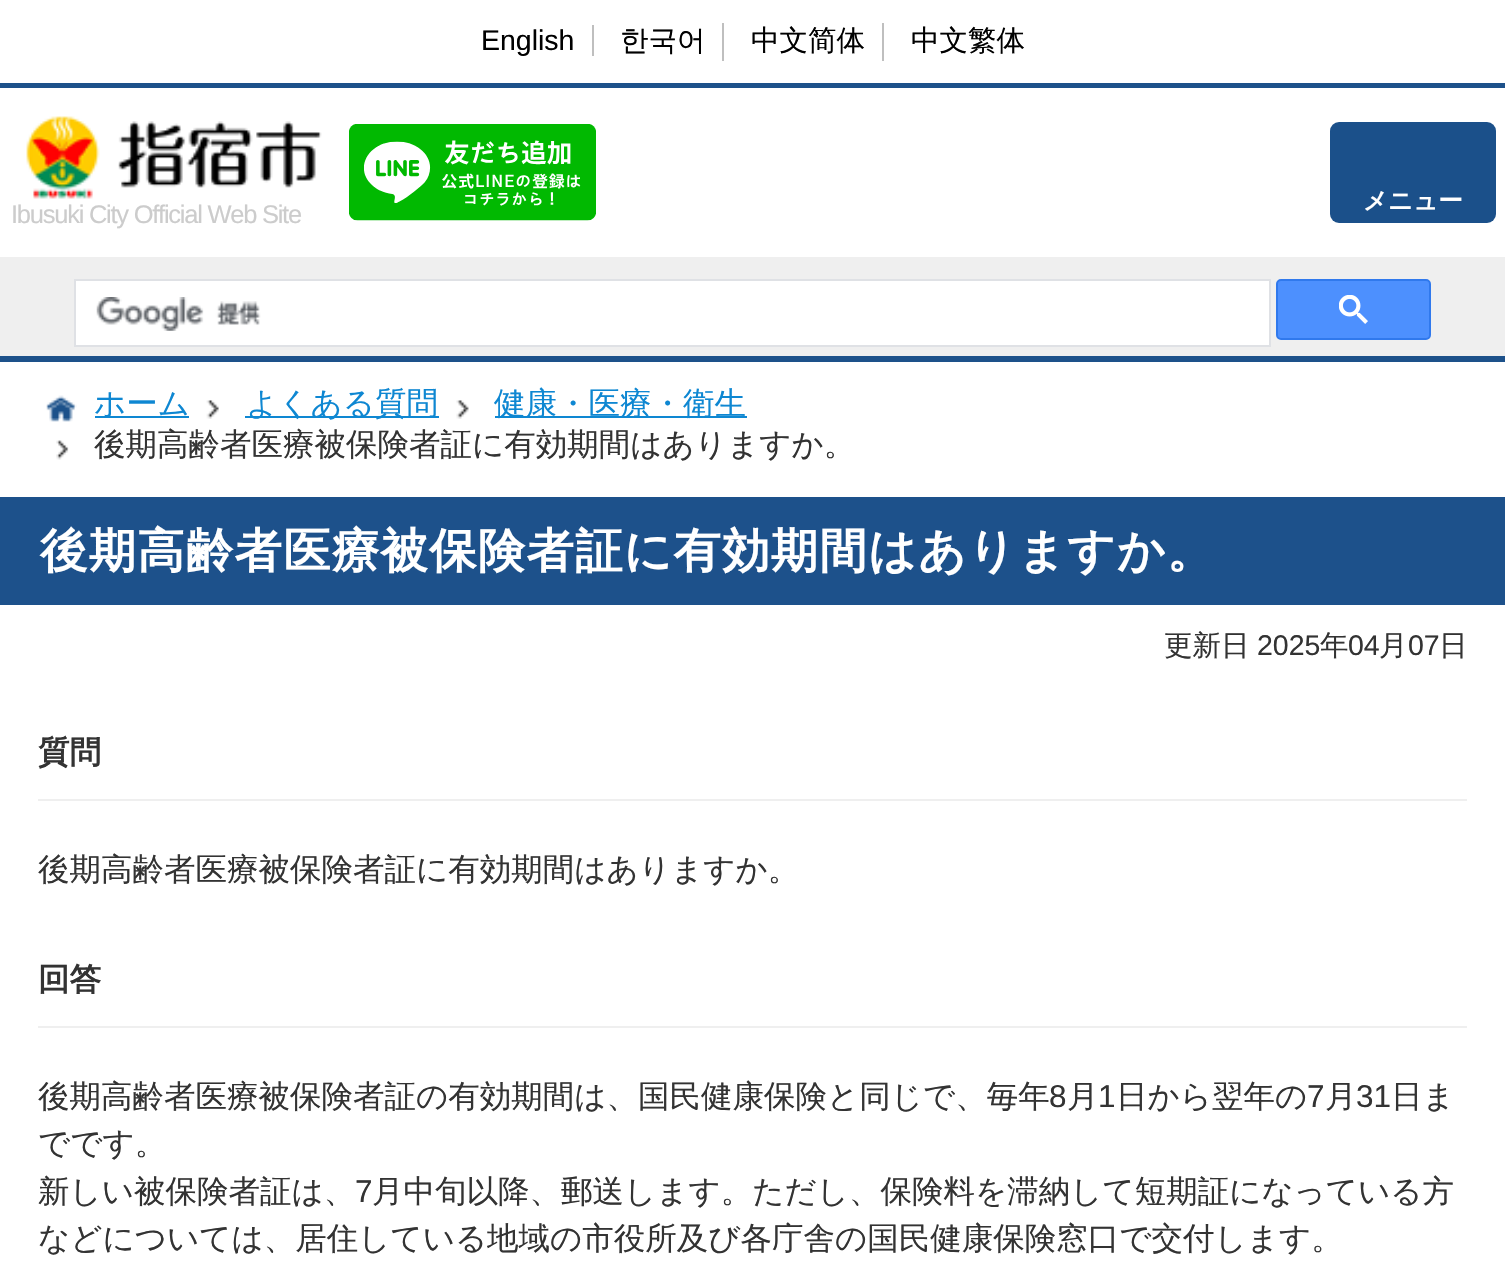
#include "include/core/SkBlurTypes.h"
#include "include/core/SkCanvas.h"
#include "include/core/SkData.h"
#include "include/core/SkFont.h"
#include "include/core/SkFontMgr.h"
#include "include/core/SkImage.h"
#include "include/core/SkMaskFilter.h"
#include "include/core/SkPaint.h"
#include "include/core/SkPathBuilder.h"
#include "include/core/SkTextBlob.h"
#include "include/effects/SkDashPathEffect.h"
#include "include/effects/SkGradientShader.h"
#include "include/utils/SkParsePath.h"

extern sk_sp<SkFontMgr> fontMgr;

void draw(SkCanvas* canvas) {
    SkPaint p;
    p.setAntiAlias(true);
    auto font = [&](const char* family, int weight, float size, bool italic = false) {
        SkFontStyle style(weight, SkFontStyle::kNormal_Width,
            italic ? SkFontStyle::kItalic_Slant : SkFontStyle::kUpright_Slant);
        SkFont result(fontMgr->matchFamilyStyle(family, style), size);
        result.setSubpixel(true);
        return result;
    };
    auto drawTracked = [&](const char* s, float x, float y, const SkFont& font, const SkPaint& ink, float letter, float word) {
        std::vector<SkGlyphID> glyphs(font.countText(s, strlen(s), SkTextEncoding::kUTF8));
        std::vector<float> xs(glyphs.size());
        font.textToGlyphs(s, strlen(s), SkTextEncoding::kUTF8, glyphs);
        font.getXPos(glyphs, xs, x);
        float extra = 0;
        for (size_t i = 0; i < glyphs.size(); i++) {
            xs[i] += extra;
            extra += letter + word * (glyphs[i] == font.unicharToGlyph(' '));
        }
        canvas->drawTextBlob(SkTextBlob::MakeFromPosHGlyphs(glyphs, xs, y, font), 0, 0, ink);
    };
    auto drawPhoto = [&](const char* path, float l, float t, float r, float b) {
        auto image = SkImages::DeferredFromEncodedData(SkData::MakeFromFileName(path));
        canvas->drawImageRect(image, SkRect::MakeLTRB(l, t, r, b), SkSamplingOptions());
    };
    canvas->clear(0xFFFFFFFF);
    p.setColor(0xFF1D518A);
    canvas->drawRect(SkRect::MakeLTRB(0, 83, 1505, 88), p);
    p.setColor(0xFFBFBFBF);
    canvas->drawRect(SkRect::MakeLTRB(592, 25, 594, 56), p);
    auto font1 = font("Liberation Sans", 400, 28.5f);
    p.setColor(0xFF000000);
    canvas->drawString("English", 481, 50, font1, p);
    p.setColor(0xFFBFBFBF);
    canvas->drawRect(SkRect::MakeLTRB(722, 23, 724, 61), p);
    auto font2 = font("WenQuanYi Zen Hei", 500, 28.5f);
    p.setColor(0xFF000000);
    canvas->drawString("한국어", 620, 50, font2, p);
    p.setColor(0xFFBFBFBF);
    canvas->drawRect(SkRect::MakeLTRB(882, 23, 884, 61), p);
    p.setColor(0xFF000000);
    canvas->drawString("中文简体", 751, 50, font2, p);
    canvas->drawString("中文繁体", 911, 50, font2, p);
    drawPhoto("media/1.png", 349, 124, 596, 221);
    p.setColor(0xFF1B508A);
    canvas->drawRoundRect(SkRect::MakeLTRB(1330, 122, 1496, 223), 9, 9, p);
    auto font3 = font("WenQuanYi Zen Hei", 700, 24.5f);
    p.setColor(0xFFFFFFFF);
    canvas->drawString("メニュー", 1363, 209, font3, p);
    drawPhoto("media/2.png", 26, 116, 322, 199);
    auto font4 = font("Liberation Sans", 400, 25.5f);
    p.setColor(0xFFCCCCCC);
    drawTracked("Ibusuki City Official Web Site", 11, 223, font4, p, -1.25f, 0);
    p.setColor(0xFFEFEFEF);
    canvas->drawRect(SkRect::MakeLTRB(0, 257, 1505, 356), p);
    p.setColor(0xFFFFFFFF);
    canvas->drawRect(SkRect::MakeLTRB(75, 280, 1270, 346), p);
    p.setStyle(SkPaint::kStroke_Style);
    p.setStrokeWidth(2);
    p.setColor(0xFFDFE1E5);
    canvas->drawRect(SkRect::MakeLTRB(75, 280, 1270, 346), p);
    drawPhoto("media/3.png", 96, 297, 261, 331);
    p.setStyle(SkPaint::kFill_Style);
    p.setColor(0xFF4D90FE);
    canvas->drawRoundRect(SkRect::MakeLTRB(1277, 280, 1430, 339), 4, 4, p);
    p.setStyle(SkPaint::kStroke_Style);
    p.setColor(0xFF3079ED);
    canvas->drawRoundRect(SkRect::MakeLTRB(1277, 280, 1430, 339), 4, 4, p);
    drawPhoto("media/4.png", 1339, 295, 1368, 324);
    p.setStyle(SkPaint::kFill_Style);
    p.setColor(0xFF1D518A);
    canvas->drawRect(SkRect::MakeLTRB(0, 356, 1505, 362), p);
    drawPhoto("media/5.png", 46, 395, 77, 422);
    p.setColor(0xFF0E87D2);
    canvas->drawRect(SkRect::MakeLTRB(95, 416, 189, 418), p);
    auto font5 = font("WenQuanYi Zen Hei", 500, 31.5f);
    canvas->drawString("ホーム", 94, 414, font5, p);
    drawPhoto("media/6.png", 206, 400, 219, 419);
    canvas->drawRect(SkRect::MakeLTRB(245, 416, 439, 418), p);
    canvas->drawString("よくある質問", 246, 414, font5, p);
    drawPhoto("media/7.png", 456, 400, 469, 419);
    canvas->drawRect(SkRect::MakeLTRB(495, 416, 747, 418), p);
    canvas->drawString("健康・医療・衛生", 494, 414, font5, p);
    drawPhoto("media/8.png", 56, 440, 69, 460);
    p.setColor(0xFF333333);
    canvas->drawString("後期高齢者医療被保険者証に有効期間はありますか。", 94, 455, font5, p);
    p.setColor(0xFF1D518B);
    canvas->drawRect(SkRect::MakeLTRB(0, 497, 1505, 605), p);
    auto font6 = font("WenQuanYi Zen Hei", 700, 47.25f);
    p.setColor(0xFFFFFFFF);
    drawTracked("後期高齢者医療被保険者証に有効期間はありますか。", 40, 567, font6, p, 1.4f, 0);
    p.setColor(0xFF333333);
    canvas->drawString("更新日", 1164, 655, font2, p);
    canvas->drawString("2025", 1257, 655, font1, p);
    canvas->drawString("年", 1320, 655, font2, p);
    canvas->drawString("04", 1348, 655, font1, p);
    canvas->drawString("月", 1379, 655, font2, p);
    canvas->drawString("07", 1408, 655, font1, p);
    canvas->drawString("日", 1439, 655, font2, p);
    p.setColor(0xFFEFEFEF);
    canvas->drawRect(SkRect::MakeLTRB(38, 799, 1467, 801), p);
    auto font7 = font("WenQuanYi Zen Hei", 700, 31.5f);
    p.setColor(0xFF333333);
    canvas->drawString("質問", 38, 763, font7, p);
    canvas->drawString("後期高齢者医療被保険者証に有効期間はありますか。", 38, 880, font5, p);
    p.setColor(0xFFEFEFEF);
    canvas->drawRect(SkRect::MakeLTRB(38, 1026, 1467, 1028), p);
    p.setColor(0xFF333333);
    canvas->drawString("回答", 38, 990, font7, p);
    canvas->drawString("後期高齢者医療被保険者証の有効期間は、国民健康保険と同じで、毎年", 38, 1107, font5, p);
    auto font8 = font("Liberation Sans", 400, 31.5f);
    canvas->drawString("8", 1049, 1107, font8, p);
    canvas->drawString("月", 1067, 1107, font5, p);
    canvas->drawString("1", 1098, 1107, font8, p);
    canvas->drawString("日から翌年の", 1116, 1107, font5, p);
    canvas->drawString("7", 1307, 1107, font8, p);
    canvas->drawString("月", 1325, 1107, font5, p);
    canvas->drawString("31", 1356, 1107, font8, p);
    {
        const struct { const char* s; float x, y; } items[] = {
            {"日ま", 1391, 1107},
            {"でです。", 38, 1154},
            {"新しい被保険者証は、", 38, 1202},
        };
        for (auto [s, x, y] : items) {
            canvas->drawString(s, x, y, font5, p);
        }
    }
    canvas->drawString("7", 355, 1202, font8, p);
    canvas->drawString("月中旬以降、郵送します。ただし、保険料を滞納して短期証になっている方", 372, 1202, font5, p);
    canvas->drawString("などについては、居住している地域の市役所及び各庁舎の国民健康保険窓口で交付します。", 38, 1249, font5, p);
}
